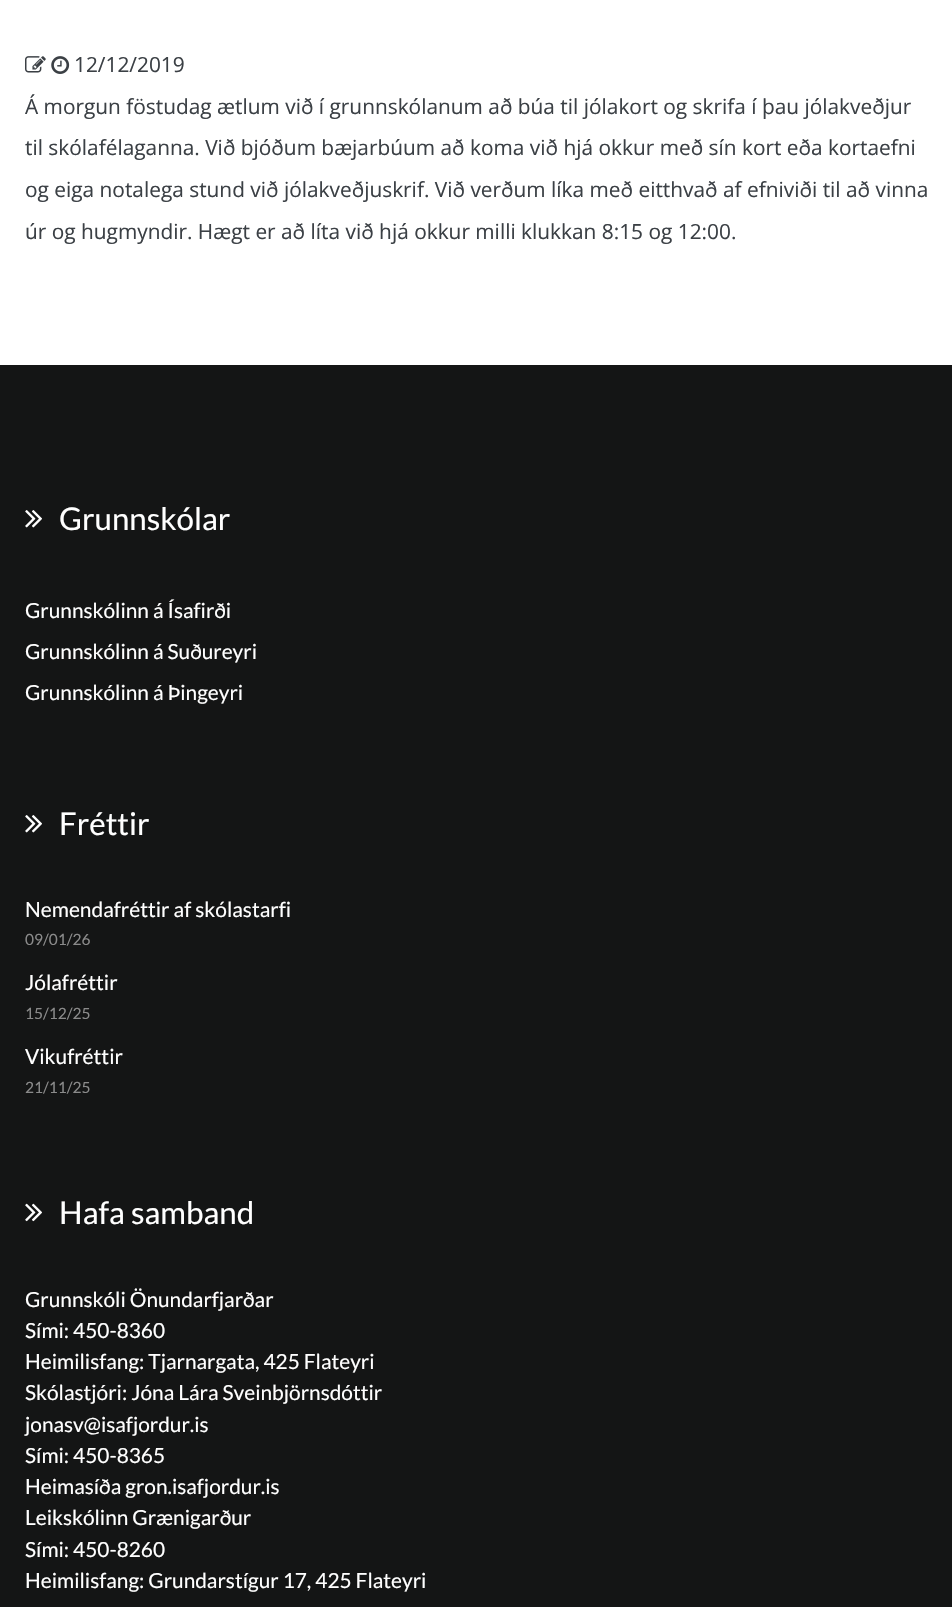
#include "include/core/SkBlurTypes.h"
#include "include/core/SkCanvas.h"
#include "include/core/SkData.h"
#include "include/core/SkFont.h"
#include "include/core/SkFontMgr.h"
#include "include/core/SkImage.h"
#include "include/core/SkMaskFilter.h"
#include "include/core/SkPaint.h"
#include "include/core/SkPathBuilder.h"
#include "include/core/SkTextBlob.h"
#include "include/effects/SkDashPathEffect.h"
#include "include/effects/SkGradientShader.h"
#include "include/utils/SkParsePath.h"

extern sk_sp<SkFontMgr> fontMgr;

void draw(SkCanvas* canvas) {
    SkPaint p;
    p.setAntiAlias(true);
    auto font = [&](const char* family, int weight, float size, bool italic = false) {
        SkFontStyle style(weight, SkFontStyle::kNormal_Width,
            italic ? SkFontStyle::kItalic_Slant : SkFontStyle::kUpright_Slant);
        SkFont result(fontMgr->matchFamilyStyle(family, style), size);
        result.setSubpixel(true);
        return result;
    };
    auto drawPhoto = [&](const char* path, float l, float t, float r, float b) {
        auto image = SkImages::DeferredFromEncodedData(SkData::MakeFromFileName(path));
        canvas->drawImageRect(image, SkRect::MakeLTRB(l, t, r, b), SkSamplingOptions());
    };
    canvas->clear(0xFFFFFFFF);
    drawPhoto("media/1.png", 25, 56, 46, 73);
    drawPhoto("media/2.png", 51, 56, 70, 74);
    auto font1 = font("Open Sans", 400, 20.85f);
    p.setColor(0xFF3B4045);
    {
        const struct { const char* s; float x, y; } items[] = {
            {"12/12/2019", 74, 72},
            {"Á morgun föstudag ætlum við í grunnskólanum að búa til jólakort og skrifa í þau jólakveðjur", 25, 114},
            {"til skólafélaganna. Við bjóðum bæjarbúum að koma við hjá okkur með sín kort eða kortaefni", 25, 155},
            {"og eiga notalega stund við jólakveðjuskrif. Við verðum líka með eitthvað af efniviði til að vinna", 25, 197},
            {"úr og hugmyndir. Hægt er að líta við hjá okkur milli klukkan 8:15 og 12:00.", 25, 239},
        };
        for (auto [s, x, y] : items) {
            canvas->drawString(s, x, y, font1, p);
        }
    }
    p.setColor(0xFF141515);
    canvas->drawRect(SkRect::MakeLTRB(0, 365, 952, 1607), p);
    drawPhoto("media/3.png", 25, 510, 42, 528);
    auto font2 = font("Lato", 400, 31.25f);
    p.setColor(0xFFFFFFFF);
    canvas->drawString("Grunnskólar", 59, 530, font2, p);
    auto font3 = font("Lato", 400, 20.85f);
    {
        const struct { const char* s; float x, y; } items[] = {
            {"Grunnskólinn á Ísafirði", 25, 618},
            {"Grunnskólinn á Suðureyri", 25, 659},
            {"Grunnskólinn á Þingeyri", 25, 700},
        };
        for (auto [s, x, y] : items) {
            canvas->drawString(s, x, y, font3, p);
        }
    }
    drawPhoto("media/3.png", 25, 815, 42, 833);
    canvas->drawString("Fréttir", 59, 835, font2, p);
    auto font4 = font("Lato", 400, 20.9f);
    canvas->drawString("Nemendafréttir af skólastarfi", 25, 917, font4, p);
    auto font5 = font("Lato", 400, 15.5f);
    p.setColor(0xFF8A8A8A);
    canvas->drawString("09/01/26", 25, 945, font5, p);
    p.setColor(0xFFFFFFFF);
    canvas->drawString("Jólafréttir", 25, 990, font4, p);
    p.setColor(0xFF8A8A8A);
    canvas->drawString("15/12/25", 25, 1019, font5, p);
    p.setColor(0xFFFFFFFF);
    canvas->drawString("Vikufréttir", 25, 1064, font4, p);
    p.setColor(0xFF8A8A8A);
    canvas->drawString("21/11/25", 25, 1093, font5, p);
    drawPhoto("media/4.png", 25, 1203, 42, 1222);
    p.setColor(0xFFFFFFFF);
    canvas->drawString("Hafa samband", 59, 1224, font2, p);
    {
        const struct { const char* s; float x, y; } items[] = {
            {"Grunnskóli Önundarfjarðar", 25, 1307},
            {"Sími: 450-8360", 25, 1338},
            {"Heimilisfang: Tjarnargata, 425 Flateyri", 25, 1369},
            {"Skólastjóri: Jóna Lára Sveinbjörnsdóttir", 25, 1400},
            {"jonasv@isafjordur.is", 25, 1432},
            {"Sími: 450-8365", 25, 1463},
            {"Heimasíða gron.isafjordur.is", 25, 1494},
            {"Leikskólinn Grænigarður", 25, 1525},
            {"Sími: 450-8260", 25, 1557},
            {"Heimilisfang: Grundarstígur 17, 425 Flateyri", 25, 1588},
        };
        for (auto [s, x, y] : items) {
            canvas->drawString(s, x, y, font3, p);
        }
    }
}
